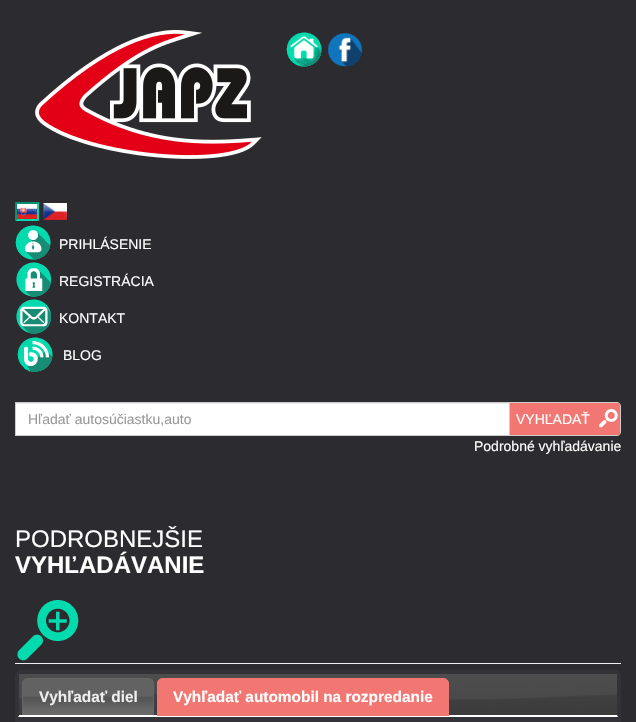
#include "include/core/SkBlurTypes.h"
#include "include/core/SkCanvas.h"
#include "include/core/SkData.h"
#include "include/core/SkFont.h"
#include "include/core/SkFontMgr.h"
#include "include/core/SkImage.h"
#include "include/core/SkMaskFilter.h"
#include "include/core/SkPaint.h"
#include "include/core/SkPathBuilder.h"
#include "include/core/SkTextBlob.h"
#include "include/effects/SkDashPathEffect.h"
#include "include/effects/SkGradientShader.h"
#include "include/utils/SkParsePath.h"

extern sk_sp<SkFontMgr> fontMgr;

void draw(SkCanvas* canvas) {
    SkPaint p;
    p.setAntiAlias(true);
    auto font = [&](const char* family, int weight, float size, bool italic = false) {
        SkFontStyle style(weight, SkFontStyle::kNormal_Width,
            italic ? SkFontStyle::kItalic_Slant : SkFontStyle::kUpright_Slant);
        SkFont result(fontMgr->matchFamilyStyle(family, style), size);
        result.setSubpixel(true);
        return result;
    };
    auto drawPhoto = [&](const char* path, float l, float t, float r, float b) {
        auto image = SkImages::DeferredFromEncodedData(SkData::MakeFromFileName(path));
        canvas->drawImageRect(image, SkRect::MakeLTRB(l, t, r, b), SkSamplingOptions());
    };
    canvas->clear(0xFF2C2B30);
    drawPhoto("media/1.png", 35, 30, 262, 159);
    drawPhoto("media/2.png", 286, 32, 322, 67);
    drawPhoto("media/3.png", 328, 33, 363, 67);
    p.setColor(0xFF029175);
    canvas->drawPath(SkPathBuilder().moveTo(15, 202).lineTo(39, 202).lineTo(37, 204).lineTo(17, 204).close().detach(), p);
    p.setColor(0xFF03DAB0);
    canvas->drawPath(SkPathBuilder().moveTo(39, 202).lineTo(39, 221).lineTo(37, 219).lineTo(37, 204).close().detach(), p);
    canvas->drawPath(SkPathBuilder().moveTo(39, 221).lineTo(15, 221).lineTo(17, 219).lineTo(37, 219).close().detach(), p);
    p.setColor(0xFF029175);
    canvas->drawPath(SkPathBuilder().moveTo(15, 221).lineTo(15, 202).lineTo(17, 204).lineTo(17, 219).close().detach(), p);
    drawPhoto("media/4.png", 17, 204, 37, 219);
    drawPhoto("media/5.png", 43, 203, 67, 220);
    drawPhoto("media/6.png", 15, 225, 51, 260);
    auto font1 = font("Liberation Sans", 400, 14);
    p.setColor(0xFFFFFFFF);
    canvas->drawString("PRIHLÁSENIE", 59, 249, font1, p);
    drawPhoto("media/7.png", 16, 262, 51, 297);
    canvas->drawString("REGISTRÁCIA", 59, 286, font1, p);
    drawPhoto("media/8.png", 16, 299, 51, 334);
    canvas->drawString("KONTAKT", 59, 323, font1, p);
    drawPhoto("media/9.png", 17, 337, 53, 372);
    canvas->drawString("BLOG", 63, 360, font1, p);
    canvas->drawRect(SkRect::MakeLTRB(16, 404, 509, 435), p);
    p.setColor(0xFFECECEC);
    canvas->drawRect(SkRect::MakeLTRB(16, 403, 509, 404), p);
    p.setStyle(SkPaint::kStroke_Style);
    p.setStrokeWidth(1);
    p.setColor(0xFFCCCCCC);
    canvas->drawRect(SkRect::MakeLTRB(15.5f, 402.5f, 509.5f, 435.5f), p);
    p.setStyle(SkPaint::kFill_Style);
    p.setColor(0xFF999999);
    canvas->drawString("Hľadať autosúčiastku,auto", 28, 424, font1, p);
    p.setColor(0xFFCCCCCC);
    canvas->drawPath(SkPathBuilder(SkPathFillType::kEvenOdd).moveTo(510, 402).lineTo(617, 402).cubicTo(619, 402, 621, 404, 621, 406).lineTo(621, 432).cubicTo(621, 434, 619, 436, 617, 436).lineTo(510, 436).close().moveTo(510, 403).lineTo(617, 403).cubicTo(619, 403, 620, 404, 620, 406).lineTo(620, 432).cubicTo(620, 434, 619, 435, 617, 435).lineTo(510, 435).close().detach(), p);
    p.setColor(0xFFF27772);
    canvas->drawRect(SkRect::MakeLTRB(510, 403, 620, 435), p);
    drawPhoto("media/10.png", 598, 409, 618, 428);
    p.setColor(0xFFFFFFFF);
    canvas->drawString("VYHĽADAŤ", 516, 424, font1, p);
    canvas->drawString("Podrobné vyhľadávanie", 474, 451, font1, p);
    auto font2 = font("Liberation Sans", 400, 24);
    canvas->drawString("PODROBNEJŠIE", 15, 547, font2, p);
    auto font3 = font("Liberation Sans", 700, 24);
    canvas->drawString("VYHĽADÁVANIE", 15, 573, font3, p);
    drawPhoto("media/11.png", 17, 600, 79, 661);
    p.setColor(0xFFEEEEEE);
    canvas->drawRect(SkRect::MakeLTRB(15, 663, 621, 664), p);
    p.setColor(0xFF333238);
    canvas->drawRoundRect(SkRect::MakeLTRB(15, 670, 621, 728), 6, 6, p);
    drawPhoto("media/12.png", 18, 674, 618, 717);
    p.setColor(0xFF333333);
    canvas->drawRect(SkRect::MakeLTRB(18, 673, 618, 674), p);
    canvas->drawPath(SkPathBuilder().moveTo(618, 673).lineTo(618, 717).lineTo(617, 715).lineTo(617, 674).close().detach(), p);
    p.setColor(0xFFFFFFFF);
    canvas->drawPath(SkPathBuilder().moveTo(618, 717).lineTo(18, 717).lineTo(19, 715).lineTo(617, 715).close().detach(), p);
    p.setColor(0xFF333333);
    canvas->drawPath(SkPathBuilder().moveTo(18, 717).lineTo(18, 673).lineTo(19, 674).lineTo(19, 715).close().detach(), p);
    drawPhoto("media/13.png", 22, 678, 154, 715);
    p.setColor(0xFF666666);
    canvas->drawPath(SkPathBuilder(SkPathFillType::kEvenOdd).moveTo(28, 678).lineTo(148, 678).cubicTo(151, 678, 154, 681, 154, 684).lineTo(154, 715).lineTo(22, 715).lineTo(22, 684).cubicTo(22, 681, 25, 678, 28, 678).close().moveTo(28, 679).lineTo(148, 679).cubicTo(151, 679, 153, 681, 153, 684).lineTo(153, 715).lineTo(23, 715).lineTo(23, 684).cubicTo(23, 681, 25, 679, 28, 679).close().detach(), p);
    auto font4 = font("Liberation Sans", 700, 15.4f);
    p.setColor(0xFFEEEEEE);
    canvas->drawString("Vyhľadať diel", 39, 702, font4, p);
    drawPhoto("media/14.png", 157, 678, 449, 716);
    p.setColor(0xFFF27772);
    canvas->drawPath(SkPathBuilder(SkPathFillType::kEvenOdd).moveTo(163, 678).lineTo(443, 678).cubicTo(446, 678, 449, 681, 449, 684).lineTo(449, 716).lineTo(157, 716).lineTo(157, 684).cubicTo(157, 681, 160, 678, 163, 678).close().moveTo(163, 679).lineTo(443, 679).cubicTo(446, 679, 448, 681, 448, 684).lineTo(448, 716).lineTo(158, 716).lineTo(158, 684).cubicTo(158, 681, 160, 679, 163, 679).close().detach(), p);
    p.setColor(0xFFFFFFFF);
    canvas->drawString("Vyhľadať automobil na rozpredanie", 173, 702, font4, p);
}
